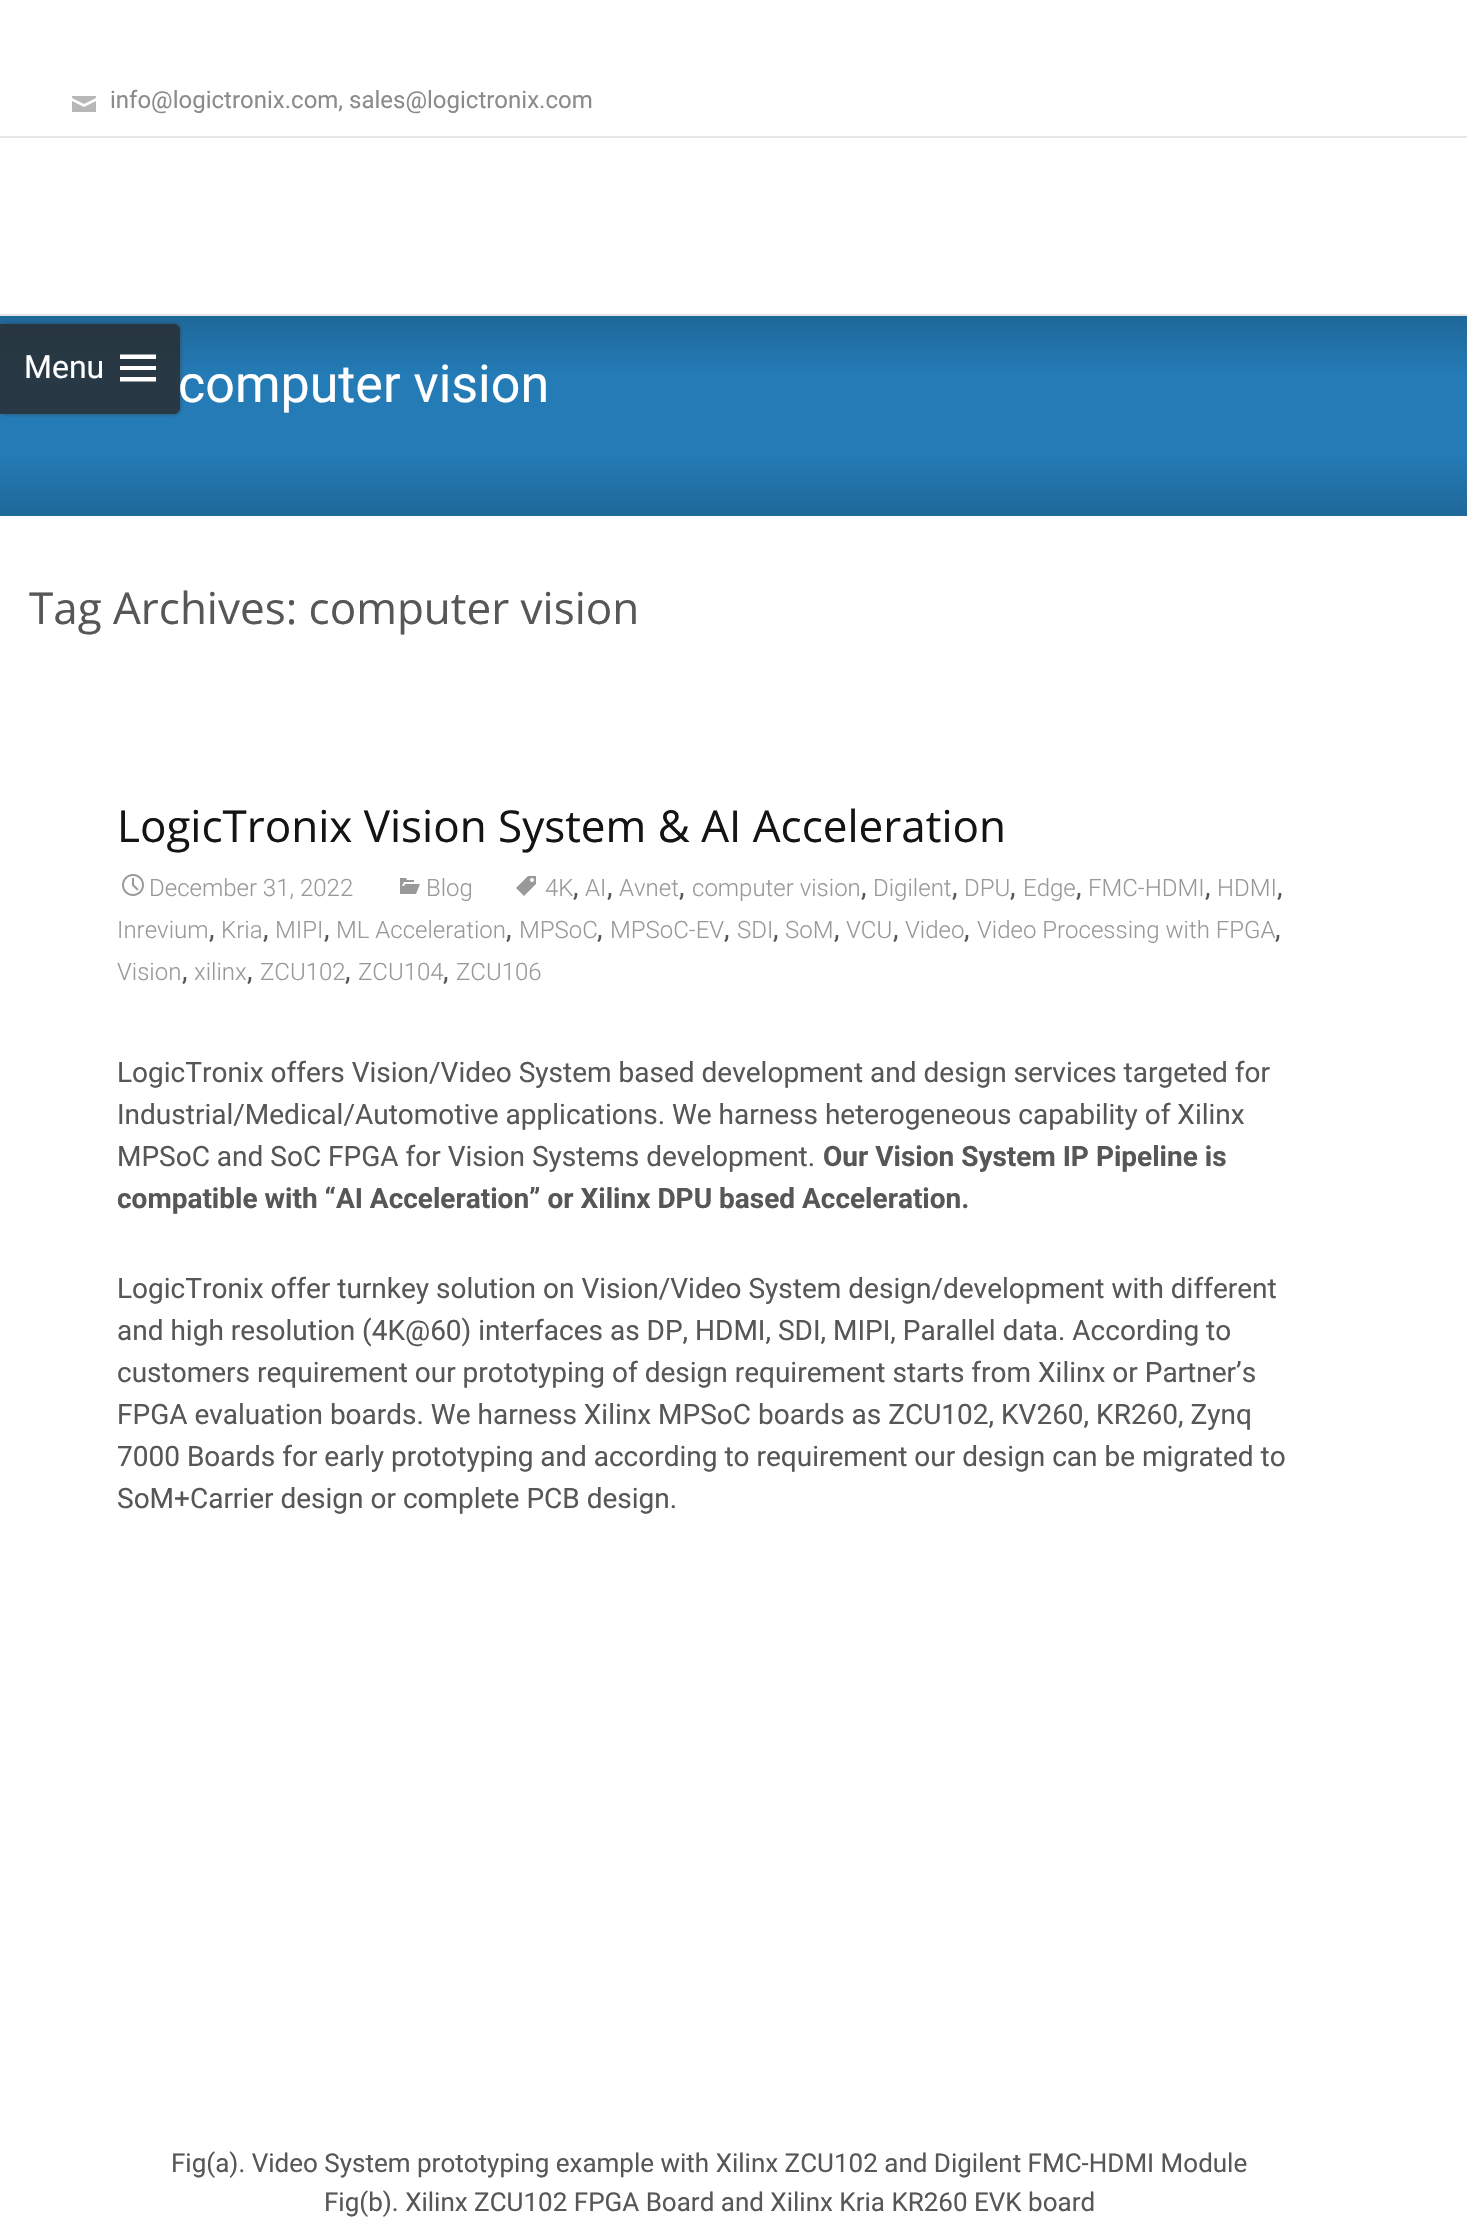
#include "include/core/SkBlurTypes.h"
#include "include/core/SkCanvas.h"
#include "include/core/SkData.h"
#include "include/core/SkFont.h"
#include "include/core/SkFontMgr.h"
#include "include/core/SkImage.h"
#include "include/core/SkMaskFilter.h"
#include "include/core/SkPaint.h"
#include "include/core/SkPathBuilder.h"
#include "include/core/SkTextBlob.h"
#include "include/effects/SkDashPathEffect.h"
#include "include/effects/SkGradientShader.h"
#include "include/utils/SkParsePath.h"

extern sk_sp<SkFontMgr> fontMgr;

void draw(SkCanvas* canvas) {
    SkPaint p;
    p.setAntiAlias(true);
    auto font = [&](const char* family, int weight, float size, bool italic = false) {
        SkFontStyle style(weight, SkFontStyle::kNormal_Width,
            italic ? SkFontStyle::kItalic_Slant : SkFontStyle::kUpright_Slant);
        SkFont result(fontMgr->matchFamilyStyle(family, style), size);
        result.setSubpixel(true);
        return result;
    };
    auto drawPhoto = [&](const char* path, float l, float t, float r, float b) {
        auto image = SkImages::DeferredFromEncodedData(SkData::MakeFromFileName(path));
        canvas->drawImageRect(image, SkRect::MakeLTRB(l, t, r, b), SkSamplingOptions());
    };
    canvas->clear(0xFFFFFFFF);
    p.setColor(0xFFE7E7E7);
    canvas->drawRect(SkRect::MakeLTRB(0, 136, 1467, 138), p);
    drawPhoto("media/1.png", 72, 96, 96, 112);
    auto font1 = font("Roboto", 400, 24);
    p.setColor(0xFF8B8B8B);
    canvas->drawString("info@logictronix.com, sales@logictronix.com", 110, 108, font1, p);
    p.setColor(0xFFE7E7E7);
    canvas->drawRect(SkRect::MakeLTRB(0, 314, 1467, 316), p);
    {
        const SkColor colors[] = {0xFF1E6899, 0xFF247BB6, 0xFF247BB6, 0xFF1E6899};
        const float stops[] = {0, 0.3f, 0.69f, 1};
        const SkPoint ends[] = {{734, 316}, {734, 516}};
        p.setShader(SkGradientShader::MakeLinear(ends, colors, stops, 4, SkTileMode::kClamp));
        p.setAlpha(255);
    }
    canvas->drawRect(SkRect::MakeLTRB(0, 316, 1467, 516), p);
    canvas->save();
    canvas->clipPath(SkPathBuilder(SkPathFillType::kEvenOdd).moveTo(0, 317).lineTo(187, 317).lineTo(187, 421).lineTo(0, 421).close().moveTo(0, 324).lineTo(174, 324).cubicTo(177.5f, 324, 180, 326.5f, 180, 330).lineTo(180, 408).cubicTo(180, 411.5f, 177.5f, 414, 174, 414).lineTo(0, 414).close().detach(), true);
    p.setShader(nullptr);
    p.setColor(0xA3323232);
    p.setMaskFilter(SkMaskFilter::MakeBlur(kNormal_SkBlurStyle, 2));
    canvas->drawRoundRect(SkRect::MakeLTRB(0, 324, 180, 414), 6, 6, p);
    p.setMaskFilter(nullptr);
    canvas->restore();
    p.setColor(0xCC282828);
    canvas->drawPath(SkPathBuilder().moveTo(0, 324).lineTo(174, 324).cubicTo(177.5f, 324, 180, 326.5f, 180, 330).lineTo(180, 408).cubicTo(180, 411.5f, 177.5f, 414, 174, 414).lineTo(0, 414).close().detach(), p);
    auto font2 = font("Roboto", 400, 32);
    p.setColor(0xFFFFFFFF);
    canvas->drawString("Menu", 24, 378, font2, p);
    canvas->drawPath(SkPathBuilder().moveTo(120, 381.5f).lineTo(120, 377).lineTo(156, 377).lineTo(156, 381.5f).close().moveTo(120, 354.5f).lineTo(156, 354.5f).lineTo(156, 359).lineTo(120, 359).close().moveTo(120, 370).lineTo(120, 366).lineTo(156, 366).lineTo(156, 370).close().detach(), p);
    auto font3 = font("Roboto", 400, 52);
    canvas->drawString("computer vision", 178, 402, font3, p);
    auto font4 = font("Open Sans", 400, 44);
    p.setColor(0xFF575757);
    canvas->drawString("Tag Archives: computer vision", 29, 624, font4, p);
    p.setColor(0xFF141412);
    canvas->drawString("LogicTronix Vision System & AI Acceleration", 117, 842, font4, p);
    drawPhoto("media/2.png", 516, 876, 536, 896);
    auto font5 = font("Roboto", 300, 24);
    p.setColor(0xFF999999);
    canvas->drawString("4K", 545, 896, font5, p);
    auto font6 = font("Roboto", 400, 28);
    p.setColor(0xFF575757);
    canvas->drawString(",", 573, 896, font6, p);
    p.setColor(0xFF999999);
    canvas->drawString("AI", 585, 896, font5, p);
    p.setColor(0xFF575757);
    canvas->drawString(",", 607, 896, font6, p);
    p.setColor(0xFF999999);
    canvas->drawString("Avnet", 619, 896, font5, p);
    p.setColor(0xFF575757);
    canvas->drawString(",", 679, 896, font6, p);
    p.setColor(0xFF999999);
    canvas->drawString("computer vision", 692, 896, font5, p);
    p.setColor(0xFF575757);
    canvas->drawString(",", 861, 896, font6, p);
    p.setColor(0xFF999999);
    canvas->drawString("Digilent", 873, 896, font5, p);
    p.setColor(0xFF575757);
    canvas->drawString(",", 952, 896, font6, p);
    p.setColor(0xFF999999);
    canvas->drawString("DPU", 964, 896, font5, p);
    p.setColor(0xFF575757);
    canvas->drawString(",", 1010, 896, font6, p);
    p.setColor(0xFF999999);
    canvas->drawString("Edge", 1023, 896, font5, p);
    p.setColor(0xFF575757);
    canvas->drawString(",", 1076, 896, font6, p);
    p.setColor(0xFF999999);
    canvas->drawString("FMC-HDMI", 1088, 896, font5, p);
    p.setColor(0xFF575757);
    canvas->drawString(",", 1205, 896, font6, p);
    p.setColor(0xFF999999);
    canvas->drawString("HDMI", 1217, 896, font5, p);
    p.setColor(0xFF575757);
    canvas->drawString(",", 1277, 896, font6, p);
    p.setColor(0xFF999999);
    canvas->drawString("Inrevium", 117, 938, font5, p);
    p.setColor(0xFF575757);
    canvas->drawString(",", 209, 938, font6, p);
    p.setColor(0xFF999999);
    canvas->drawString("Kria", 221, 938, font5, p);
    p.setColor(0xFF575757);
    canvas->drawString(",", 263, 938, font6, p);
    p.setColor(0xFF999999);
    canvas->drawString("MIPI", 275, 938, font5, p);
    p.setColor(0xFF575757);
    canvas->drawString(",", 324, 938, font6, p);
    p.setColor(0xFF999999);
    canvas->drawString("ML Acceleration", 336, 938, font5, p);
    p.setColor(0xFF575757);
    canvas->drawString(",", 506, 938, font6, p);
    p.setColor(0xFF999999);
    canvas->drawString("MPSoC", 519, 938, font5, p);
    p.setColor(0xFF575757);
    canvas->drawString(",", 597, 938, font6, p);
    p.setColor(0xFF999999);
    canvas->drawString("MPSoC-EV", 610, 938, font5, p);
    p.setColor(0xFF575757);
    canvas->drawString(",", 724, 938, font6, p);
    p.setColor(0xFF999999);
    canvas->drawString("SDI", 737, 938, font5, p);
    p.setColor(0xFF575757);
    canvas->drawString(",", 773, 938, font6, p);
    p.setColor(0xFF999999);
    canvas->drawString("SoM", 785, 938, font5, p);
    p.setColor(0xFF575757);
    canvas->drawString(",", 834, 938, font6, p);
    p.setColor(0xFF999999);
    canvas->drawString("VCU", 846, 938, font5, p);
    p.setColor(0xFF575757);
    canvas->drawString(",", 893, 938, font6, p);
    p.setColor(0xFF999999);
    canvas->drawString("Video", 905, 938, font5, p);
    p.setColor(0xFF575757);
    canvas->drawString(",", 964, 938, font6, p);
    p.setColor(0xFF999999);
    canvas->drawString("Video Processing with FPGA", 977, 938, font5, p);
    p.setColor(0xFF575757);
    canvas->drawString(",", 1275, 938, font6, p);
    p.setColor(0xFF999999);
    canvas->drawString("Vision", 117, 980, font5, p);
    p.setColor(0xFF575757);
    canvas->drawString(",", 182, 980, font6, p);
    p.setColor(0xFF999999);
    canvas->drawString("xilinx", 194, 980, font5, p);
    p.setColor(0xFF575757);
    canvas->drawString(",", 247, 980, font6, p);
    p.setColor(0xFF999999);
    canvas->drawString("ZCU102", 260, 980, font5, p);
    p.setColor(0xFF575757);
    canvas->drawString(",", 345, 980, font6, p);
    p.setColor(0xFF999999);
    canvas->drawString("ZCU104", 358, 980, font5, p);
    p.setColor(0xFF575757);
    canvas->drawString(",", 443, 980, font6, p);
    p.setColor(0xFF999999);
    canvas->drawString("ZCU106", 456, 980, font5, p);
    drawPhoto("media/3.png", 122, 874, 144, 896);
    canvas->drawString("December 31, 2022", 149, 896, font5, p);
    drawPhoto("media/4.png", 400, 878, 420, 894);
    canvas->drawString("Blog", 426, 896, font5, p);
    p.setColor(0xFF575757);
    {
        const struct { const char* s; float x, y; } items[] = {
            {"LogicTronix offers Vision/Video System based development and design services targeted for", 117, 1082},
            {"Industrial/Medical/Automotive applications. We harness heterogeneous capability of Xilinx", 117, 1124},
            {"MPSoC and SoC FPGA for Vision Systems development.", 117, 1166},
        };
        for (auto [s, x, y] : items) {
            canvas->drawString(s, x, y, font6, p);
        }
    }
    auto font7 = font("Roboto", 700, 28);
    canvas->drawString("Our Vision System IP Pipeline is", 823, 1166, font7, p);
    canvas->drawString("compatible with “AI Acceleration” or Xilinx DPU based Acceleration.", 117, 1208, font7, p);
    {
        const struct { const char* s; float x, y; } items[] = {
            {"LogicTronix offer turnkey solution on Vision/Video System design/development with different", 117, 1298},
            {"and high resolution (4K@60) interfaces as DP, HDMI, SDI, MIPI, Parallel data. According to", 117, 1340},
            {"customers requirement our prototyping of design requirement starts from Xilinx or Partner’s", 117, 1382},
            {"FPGA evaluation boards. We harness Xilinx MPSoC boards as ZCU102, KV260, KR260, Zynq", 117, 1424},
            {"7000 Boards for early prototyping and according to requirement our design can be migrated to", 117, 1466},
            {"SoM+Carrier design or complete PCB design.", 117, 1508},
        };
        for (auto [s, x, y] : items) {
            canvas->drawString(s, x, y, font6, p);
        }
    }
    auto font8 = font("Roboto", 400, 26);
    canvas->drawString("Fig(a). Video System prototyping example with Xilinx ZCU102 and Digilent FMC-HDMI Module", 171, 2172, font8, p);
    canvas->drawString("Fig(b). Xilinx ZCU102 FPGA Board and Xilinx Kria KR260 EVK board", 324, 2211, font8, p);
}
